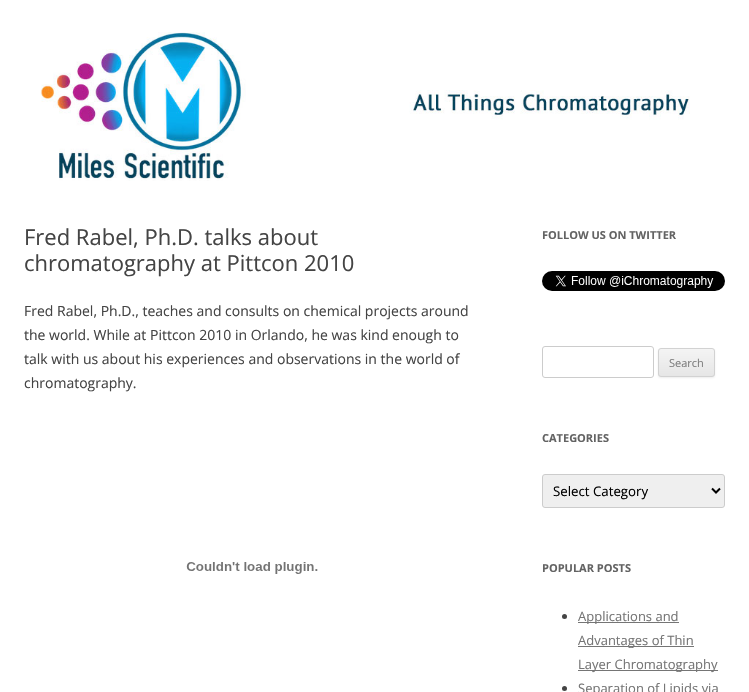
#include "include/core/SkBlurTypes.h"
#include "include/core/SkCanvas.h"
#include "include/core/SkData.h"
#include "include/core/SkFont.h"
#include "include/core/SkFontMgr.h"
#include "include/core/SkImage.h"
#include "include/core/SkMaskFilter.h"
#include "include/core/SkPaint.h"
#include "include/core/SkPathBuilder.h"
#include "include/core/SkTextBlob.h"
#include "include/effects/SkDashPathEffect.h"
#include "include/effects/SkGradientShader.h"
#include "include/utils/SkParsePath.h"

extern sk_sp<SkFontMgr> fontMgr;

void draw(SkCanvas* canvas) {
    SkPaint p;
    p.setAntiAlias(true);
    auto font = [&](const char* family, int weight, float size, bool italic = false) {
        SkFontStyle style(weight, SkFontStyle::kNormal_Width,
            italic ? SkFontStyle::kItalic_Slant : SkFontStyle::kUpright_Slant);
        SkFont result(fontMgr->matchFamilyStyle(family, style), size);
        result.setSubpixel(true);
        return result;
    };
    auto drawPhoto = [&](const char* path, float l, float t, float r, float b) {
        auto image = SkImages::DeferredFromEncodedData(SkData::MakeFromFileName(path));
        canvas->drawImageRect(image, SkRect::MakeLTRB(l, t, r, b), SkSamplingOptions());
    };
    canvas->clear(0xFFFFFFFF);
    drawPhoto("media/1.png", 40, 32, 690, 181);
    auto font1 = font("Open Sans", 400, 22);
    p.setColor(0xFF444444);
    canvas->drawString("Fred Rabel, Ph.D. talks about", 24, 245, font1, p);
    canvas->drawString("chromatography at Pittcon 2010", 24, 271, font1, p);
    auto font2 = font("Open Sans", 400, 14);
    {
        const struct { const char* s; float x, y; } items[] = {
            {"Fred Rabel, Ph.D., teaches and consults on chemical projects around", 24, 316},
            {"the world. While at Pittcon 2010 in Orlando, he was kind enough to", 24, 340},
            {"talk with us about his experiences and observations in the world of", 24, 364},
            {"chromatography.", 24, 388},
        };
        for (auto [s, x, y] : items) {
            canvas->drawString(s, x, y, font2, p);
        }
    }
    drawPhoto("media/2.png", 186, 562, 318, 574);
    auto font3 = font("Open Sans", 700, 11);
    p.setColor(0xFF636363);
    canvas->drawString("FOLLOW US ON TWITTER", 542, 239, font3, p);
    drawPhoto("media/3.png", 542, 271, 725, 291);
    p.setStyle(SkPaint::kStroke_Style);
    p.setStrokeWidth(1);
    p.setColor(0xFFCCCCCC);
    canvas->drawRoundRect(SkRect::MakeLTRB(542.5f, 346.5f, 653.5f, 377.5f), 2.5f, 2.5f, p);
    p.setStyle(SkPaint::kFill_Style);
    p.setColor(0x1A404040);
    p.setMaskFilter(SkMaskFilter::MakeBlur(kNormal_SkBlurStyle, 1));
    canvas->drawRoundRect(SkRect::MakeLTRB(658, 349, 715, 378), 3, 3, p);
    p.setMaskFilter(nullptr);
    canvas->save();
    canvas->clipPath(SkPathBuilder().moveTo(661, 348).lineTo(712, 348).cubicTo(713.5f, 348, 715, 349.5f, 715, 351).lineTo(715, 374).cubicTo(715, 375.5f, 713.5f, 377, 712, 377).lineTo(661, 377).cubicTo(659.5f, 377, 658, 375.5f, 658, 374).lineTo(658, 351).cubicTo(658, 349.5f, 659.5f, 348, 661, 348).close().detach(), true);
    {
        const SkColor colors[] = {0xFFF4F4F4, 0xFFE6E6E6};
        const float stops[] = {0, 1};
        const SkPoint ends[] = {{687, 349}, {687, 376}};
        p.setShader(SkGradientShader::MakeLinear(ends, colors, stops, 2, SkTileMode::kClamp));
        p.setAlpha(255);
    }
    canvas->drawRect(SkRect::MakeLTRB(658, 349, 715, 376), p);
    canvas->restore();
    p.setStyle(SkPaint::kStroke_Style);
    p.setShader(nullptr);
    p.setColor(0xFFD2D2D2);
    canvas->drawRoundRect(SkRect::MakeLTRB(658.5f, 348.5f, 714.5f, 376.5f), 2.5f, 2.5f, p);
    auto font4 = font("Open Sans", 400, 11);
    p.setStyle(SkPaint::kFill_Style);
    p.setColor(0xFF7C7C7C);
    canvas->drawString("Search", 669, 367, font4, p);
    p.setColor(0xFF636363);
    canvas->drawString("CATEGORIES", 542, 442, font3, p);
    p.setColor(0xFFEFEFEF);
    canvas->drawRoundRect(SkRect::MakeLTRB(542.5f, 474.5f, 724.5f, 507.5f), 2.5f, 2.5f, p);
    p.setStyle(SkPaint::kStroke_Style);
    p.setColor(0xFFCCCCCC);
    canvas->drawRoundRect(SkRect::MakeLTRB(542.5f, 474.5f, 724.5f, 507.5f), 2.5f, 2.5f, p);
    p.setStrokeWidth(2);
    p.setColor(0xFF000000);
    canvas->drawPath(SkPathBuilder().moveTo(712, 488.5f).lineTo(716, 492.5f).lineTo(720, 488.5f).detach(), p);
    auto font5 = font("Open Sans", 400, 13.25f);
    p.setStyle(SkPaint::kFill_Style);
    canvas->drawString("Select Category", 553, 496, font5, p);
    p.setColor(0xFF636363);
    canvas->drawString("POPULAR POSTS", 542, 572, font3, p);
    p.setColor(0xFF444444);
    canvas->drawCircle(564.5f, 616.5f, 2.5f, p);
    p.setColor(0xFF757575);
    canvas->drawRect(SkRect::MakeLTRB(578, 622, 679, 623), p);
    auto font6 = font("Open Sans", 400, 13);
    canvas->drawString("Applications and", 578, 621, font6, p);
    canvas->drawRect(SkRect::MakeLTRB(578, 646, 694, 647), p);
    canvas->drawString("Advantages of Thin", 578, 645, font6, p);
    canvas->drawRect(SkRect::MakeLTRB(578, 670, 718, 671), p);
    canvas->drawString("Layer Chromatography", 578, 669, font6, p);
    p.setColor(0xFF444444);
    canvas->drawCircle(564.5f, 688.5f, 2.5f, p);
    p.setColor(0xFF757575);
    canvas->drawString("Separation of Lipids via", 578, 693, font6, p);
}
